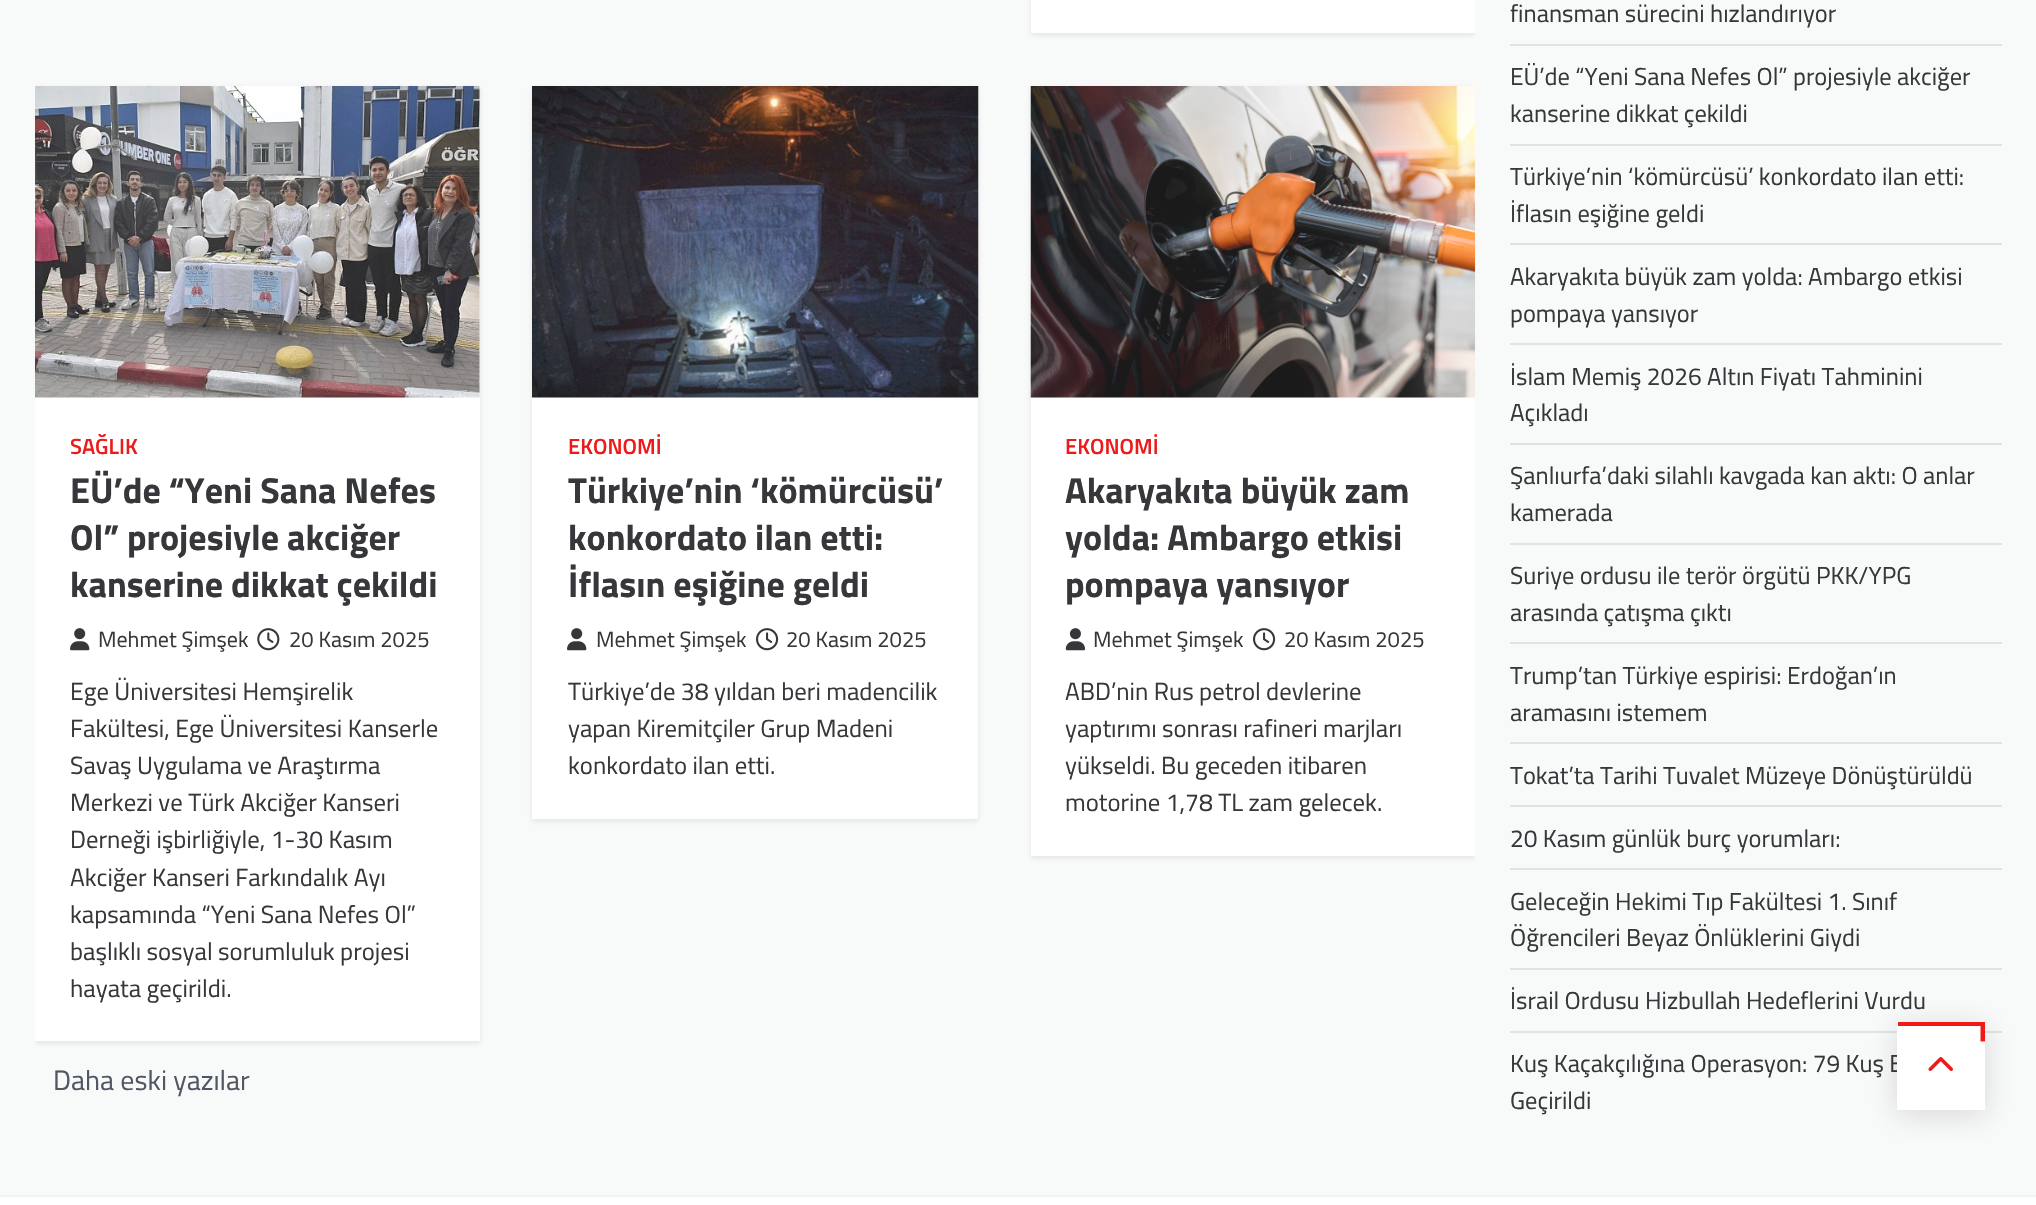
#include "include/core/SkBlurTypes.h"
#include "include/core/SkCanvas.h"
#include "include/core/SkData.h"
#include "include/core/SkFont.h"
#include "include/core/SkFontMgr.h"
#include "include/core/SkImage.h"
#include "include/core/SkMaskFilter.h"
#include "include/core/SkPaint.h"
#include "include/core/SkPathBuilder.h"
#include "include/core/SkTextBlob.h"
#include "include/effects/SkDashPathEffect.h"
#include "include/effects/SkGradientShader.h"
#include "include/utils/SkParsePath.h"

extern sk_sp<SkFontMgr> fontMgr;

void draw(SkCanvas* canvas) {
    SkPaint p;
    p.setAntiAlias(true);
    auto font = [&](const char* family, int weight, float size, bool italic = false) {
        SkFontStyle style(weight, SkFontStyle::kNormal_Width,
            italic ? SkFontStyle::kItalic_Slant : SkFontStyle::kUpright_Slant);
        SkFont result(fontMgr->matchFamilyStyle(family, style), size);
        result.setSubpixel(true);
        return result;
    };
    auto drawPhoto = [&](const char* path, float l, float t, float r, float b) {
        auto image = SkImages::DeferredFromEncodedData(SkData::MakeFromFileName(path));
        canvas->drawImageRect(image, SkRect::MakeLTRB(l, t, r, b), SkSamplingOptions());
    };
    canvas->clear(0xFFF8FAF9);
    canvas->save();
    canvas->clipRect(SkRect::MakeLTRB(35, 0, 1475, 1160));
    p.setColor(0x1A1A1A1A);
    p.setMaskFilter(SkMaskFilter::MakeBlur(kNormal_SkBlurStyle, 2.5f));
    canvas->drawRect(SkRect::MakeLTRB(1031, -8, 1475, 35), p);
    p.setMaskFilter(nullptr);
    canvas->restore();
    p.setColor(0xFFFFFFFF);
    canvas->drawRect(SkRect::MakeLTRB(1031, 0, 1475, 33), p);
    canvas->save();
    canvas->clipRect(SkRect::MakeLTRB(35, 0, 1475, 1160));
    p.setColor(0x1A1A1A1A);
    p.setMaskFilter(SkMaskFilter::MakeBlur(kNormal_SkBlurStyle, 2.5f));
    canvas->drawRect(SkRect::MakeLTRB(35, 88, 480, 1043), p);
    p.setMaskFilter(nullptr);
    canvas->restore();
    p.setColor(0xFFFFFFFF);
    canvas->drawRect(SkRect::MakeLTRB(35, 397, 480, 1041), p);
    p.setColor(0xFFF2F3F8);
    canvas->drawRect(SkRect::MakeLTRB(479, 86, 480, 397), p);
    drawPhoto("media/1.png", 35, 86, 480, 398);
    auto font1 = font("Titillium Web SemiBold", 600, 22);
    p.setColor(0xFFEE1A1A);
    canvas->drawString("SAĞLIK", 70, 454, font1, p);
    auto font2 = font("Titillium Web", 700, 36);
    p.setColor(0xFF36373A);
    {
        const struct { const char* s; float x, y; } items[] = {
            {"EÜ’de “Yeni Sana Nefes", 70, 503},
            {"Ol” projesiyle akciğer", 70, 550},
            {"kanserine dikkat çekildi", 70, 597},
        };
        for (auto [s, x, y] : items) {
            canvas->drawString(s, x, y, font2, p);
        }
    }
    drawPhoto("media/2.png", 70, 628, 90, 651);
    auto font3 = font("Titillium Web", 400, 22);
    canvas->drawString("Mehmet Şimşek", 98, 647, font3, p);
    drawPhoto("media/3.png", 257, 628, 280, 651);
    canvas->drawString("20 Kasım 2025", 289, 647, font3, p);
    auto font4 = font("Titillium Web", 400, 24.75f);
    {
        const struct { const char* s; float x, y; } items[] = {
            {"Ege Üniversitesi Hemşirelik", 70, 700},
            {"Fakültesi, Ege Üniversitesi Kanserle", 70, 737},
            {"Savaş Uygulama ve Araştırma", 70, 774},
            {"Merkezi ve Türk Akciğer Kanseri", 70, 811},
            {"Derneği işbirliğiyle, 1-30 Kasım", 70, 848},
            {"Akciğer Kanseri Farkındalık Ayı", 70, 886},
            {"kapsamında “Yeni Sana Nefes Ol”", 70, 923},
            {"başlıklı sosyal sorumluluk projesi", 70, 960},
            {"hayata geçirildi.", 70, 997},
        };
        for (auto [s, x, y] : items) {
            canvas->drawString(s, x, y, font4, p);
        }
    }
    p.setColor(0x1A1A1A1A);
    p.setMaskFilter(SkMaskFilter::MakeBlur(kNormal_SkBlurStyle, 2.5f));
    canvas->drawRect(SkRect::MakeLTRB(532, 88, 978, 821), p);
    p.setMaskFilter(nullptr);
    p.setColor(0xFFFFFFFF);
    canvas->drawRect(SkRect::MakeLTRB(532, 397, 978, 819), p);
    drawPhoto("media/4.png", 532, 86, 979, 398);
    p.setColor(0xFFEE1A1A);
    canvas->drawString("EKONOMİ", 568, 454, font1, p);
    p.setColor(0xFF36373A);
    {
        const struct { const char* s; float x, y; } items[] = {
            {"Türkiye’nin ‘kömürcüsü’", 568, 503},
            {"konkordato ilan etti:", 568, 550},
            {"İflasın eşiğine geldi", 568, 597},
        };
        for (auto [s, x, y] : items) {
            canvas->drawString(s, x, y, font2, p);
        }
    }
    drawPhoto("media/2.png", 567, 628, 587, 651);
    canvas->drawString("Mehmet Şimşek", 596, 647, font3, p);
    drawPhoto("media/5.png", 756, 628, 779, 651);
    canvas->drawString("20 Kasım 2025", 786, 647, font3, p);
    {
        const struct { const char* s; float x, y; } items[] = {
            {"Türkiye’de 38 yıldan beri madencilik", 568, 700},
            {"yapan Kiremitçiler Grup Madeni", 568, 737},
            {"konkordato ilan etti.", 568, 774},
        };
        for (auto [s, x, y] : items) {
            canvas->drawString(s, x, y, font4, p);
        }
    }
    canvas->save();
    canvas->clipRect(SkRect::MakeLTRB(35, 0, 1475, 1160));
    p.setColor(0x1A1A1A1A);
    p.setMaskFilter(SkMaskFilter::MakeBlur(kNormal_SkBlurStyle, 2.5f));
    canvas->drawRect(SkRect::MakeLTRB(1031, 88, 1475, 858), p);
    p.setMaskFilter(nullptr);
    canvas->restore();
    p.setColor(0xFFFFFFFF);
    canvas->drawRect(SkRect::MakeLTRB(1031, 397, 1475, 856), p);
    drawPhoto("media/6.png", 1030, 86, 1476, 398);
    p.setColor(0xFFEE1A1A);
    canvas->drawString("EKONOMİ", 1065, 454, font1, p);
    p.setColor(0xFF36373A);
    {
        const struct { const char* s; float x, y; } items[] = {
            {"Akaryakıta büyük zam", 1065, 503},
            {"yolda: Ambargo etkisi", 1065, 550},
            {"pompaya yansıyor", 1065, 597},
        };
        for (auto [s, x, y] : items) {
            canvas->drawString(s, x, y, font2, p);
        }
    }
    drawPhoto("media/7.png", 1065, 628, 1086, 651);
    canvas->drawString("Mehmet Şimşek", 1093, 647, font3, p);
    drawPhoto("media/5.png", 1253, 628, 1276, 651);
    canvas->drawString("20 Kasım 2025", 1284, 647, font3, p);
    {
        const struct { const char* s; float x, y; } items[] = {
            {"ABD’nin Rus petrol devlerine", 1065, 700},
            {"yaptırımı sonrası rafineri marjları", 1065, 737},
            {"yükseldi. Bu geceden itibaren", 1065, 774},
            {"motorine 1,78 TL zam gelecek.", 1065, 811},
        };
        for (auto [s, x, y] : items) {
            canvas->drawString(s, x, y, font4, p);
        }
    }
    auto font5 = font("Titillium Web", 400, 28);
    p.setColor(0xFF505763);
    canvas->drawString("Daha eski yazılar", 53, 1090, font5, p);
    p.setColor(0xFFE1E3E2);
    canvas->drawRect(SkRect::MakeLTRB(1510, 44, 2002, 46), p);
    auto font6 = font("Titillium Web", 400, 24.5f);
    p.setColor(0xFF36373A);
    canvas->drawString("finansman sürecini hızlandırıyor", 1510, 22, font6, p);
    p.setColor(0xFFE1E3E2);
    canvas->drawRect(SkRect::MakeLTRB(1510, 144, 2002, 146), p);
    p.setColor(0xFF36373A);
    canvas->drawString("EÜ’de “Yeni Sana Nefes Ol” projesiyle akciğer", 1510, 85, font6, p);
    canvas->drawString("kanserine dikkat çekildi", 1510, 122, font6, p);
    p.setColor(0xFFE1E3E2);
    canvas->drawRect(SkRect::MakeLTRB(1510, 243, 2002, 245), p);
    p.setColor(0xFF36373A);
    canvas->drawString("Türkiye’nin ‘kömürcüsü’ konkordato ilan etti:", 1510, 185, font6, p);
    canvas->drawString("İflasın eşiğine geldi", 1510, 222, font6, p);
    p.setColor(0xFFE1E3E2);
    canvas->drawRect(SkRect::MakeLTRB(1510, 343, 2002, 345), p);
    p.setColor(0xFF36373A);
    canvas->drawString("Akaryakıta büyük zam yolda: Ambargo etkisi", 1510, 285, font6, p);
    canvas->drawString("pompaya yansıyor", 1510, 322, font6, p);
    p.setColor(0xFFE1E3E2);
    canvas->drawRect(SkRect::MakeLTRB(1510, 443, 2002, 445), p);
    p.setColor(0xFF36373A);
    canvas->drawString("İslam Memiş 2026 Altın Fiyatı Tahminini", 1510, 385, font6, p);
    canvas->drawString("Açıkladı", 1510, 421, font6, p);
    p.setColor(0xFFE1E3E2);
    canvas->drawRect(SkRect::MakeLTRB(1510, 543, 2002, 545), p);
    p.setColor(0xFF36373A);
    canvas->drawString("Şanlıurfa’daki silahlı kavgada kan aktı: O anlar", 1510, 484, font6, p);
    canvas->drawString("kamerada", 1510, 521, font6, p);
    p.setColor(0xFFE1E3E2);
    canvas->drawRect(SkRect::MakeLTRB(1510, 642, 2002, 644), p);
    p.setColor(0xFF36373A);
    canvas->drawString("Suriye ordusu ile terör örgütü PKK/YPG", 1510, 584, font6, p);
    canvas->drawString("arasında çatışma çıktı", 1510, 621, font6, p);
    p.setColor(0xFFE1E3E2);
    canvas->drawRect(SkRect::MakeLTRB(1510, 742, 2002, 744), p);
    p.setColor(0xFF36373A);
    canvas->drawString("Trump’tan Türkiye espirisi: Erdoğan’ın", 1510, 684, font6, p);
    canvas->drawString("aramasını istemem", 1510, 721, font6, p);
    p.setColor(0xFFE1E3E2);
    canvas->drawRect(SkRect::MakeLTRB(1510, 805, 2002, 807), p);
    p.setColor(0xFF36373A);
    canvas->drawString("Tokat’ta Tarihi Tuvalet Müzeye Dönüştürüldü", 1510, 784, font6, p);
    p.setColor(0xFFE1E3E2);
    canvas->drawRect(SkRect::MakeLTRB(1510, 868, 2002, 870), p);
    p.setColor(0xFF36373A);
    canvas->drawString("20 Kasım günlük burç yorumları:", 1510, 847, font6, p);
    p.setColor(0xFFE1E3E2);
    canvas->drawRect(SkRect::MakeLTRB(1510, 968, 2002, 970), p);
    p.setColor(0xFF36373A);
    canvas->drawString("Geleceğin Hekimi Tıp Fakültesi 1. Sınıf", 1510, 910, font6, p);
    canvas->drawString("Öğrencileri Beyaz Önlüklerini Giydi", 1510, 946, font6, p);
    p.setColor(0xFFE1E3E2);
    canvas->drawRect(SkRect::MakeLTRB(1510, 1031, 2002, 1033), p);
    p.setColor(0xFF36373A);
    {
        const struct { const char* s; float x, y; } items[] = {
            {"İsrail Ordusu Hizbullah Hedeflerini Vurdu", 1510, 1009},
            {"Kuş Kaçakçılığına Operasyon: 79 Kuş E", 1510, 1072},
            {"Geçirildi", 1510, 1109},
        };
        for (auto [s, x, y] : items) {
            canvas->drawString(s, x, y, font6, p);
        }
    }
    p.setColor(0x261A1A1A);
    p.setMaskFilter(SkMaskFilter::MakeBlur(kNormal_SkBlurStyle, 14));
    canvas->drawRect(SkRect::MakeLTRB(1897, 1027, 1985, 1115), p);
    p.setMaskFilter(nullptr);
    p.setColor(0xFFFFFFFF);
    canvas->drawRect(SkRect::MakeLTRB(1897, 1022, 1985, 1110), p);
    canvas->save();
    canvas->clipRect(SkRect::MakeLTRB(1897, 1022, 1985, 1110));
    p.setStyle(SkPaint::kStroke_Style);
    p.setStrokeWidth(6);
    p.setColor(0xFFEE1A1A);
    canvas->drawPath(SkPathBuilder().moveTo(1898, 1023).lineTo(1983.5f, 1023).lineTo(1983.5f, 1041.5f).detach(), p);
    canvas->restore();
    drawPhoto("media/8.png", 1928, 1057, 1953, 1071);
    p.setStyle(SkPaint::kFill_Style);
    p.setColor(0xFFFFFFFF);
    canvas->drawRect(SkRect::MakeLTRB(0, 1197, 2036, 1205), p);
    p.setColor(0xFFF2F2F2);
    canvas->drawRect(SkRect::MakeLTRB(0, 1195, 2036, 1197), p);
}
